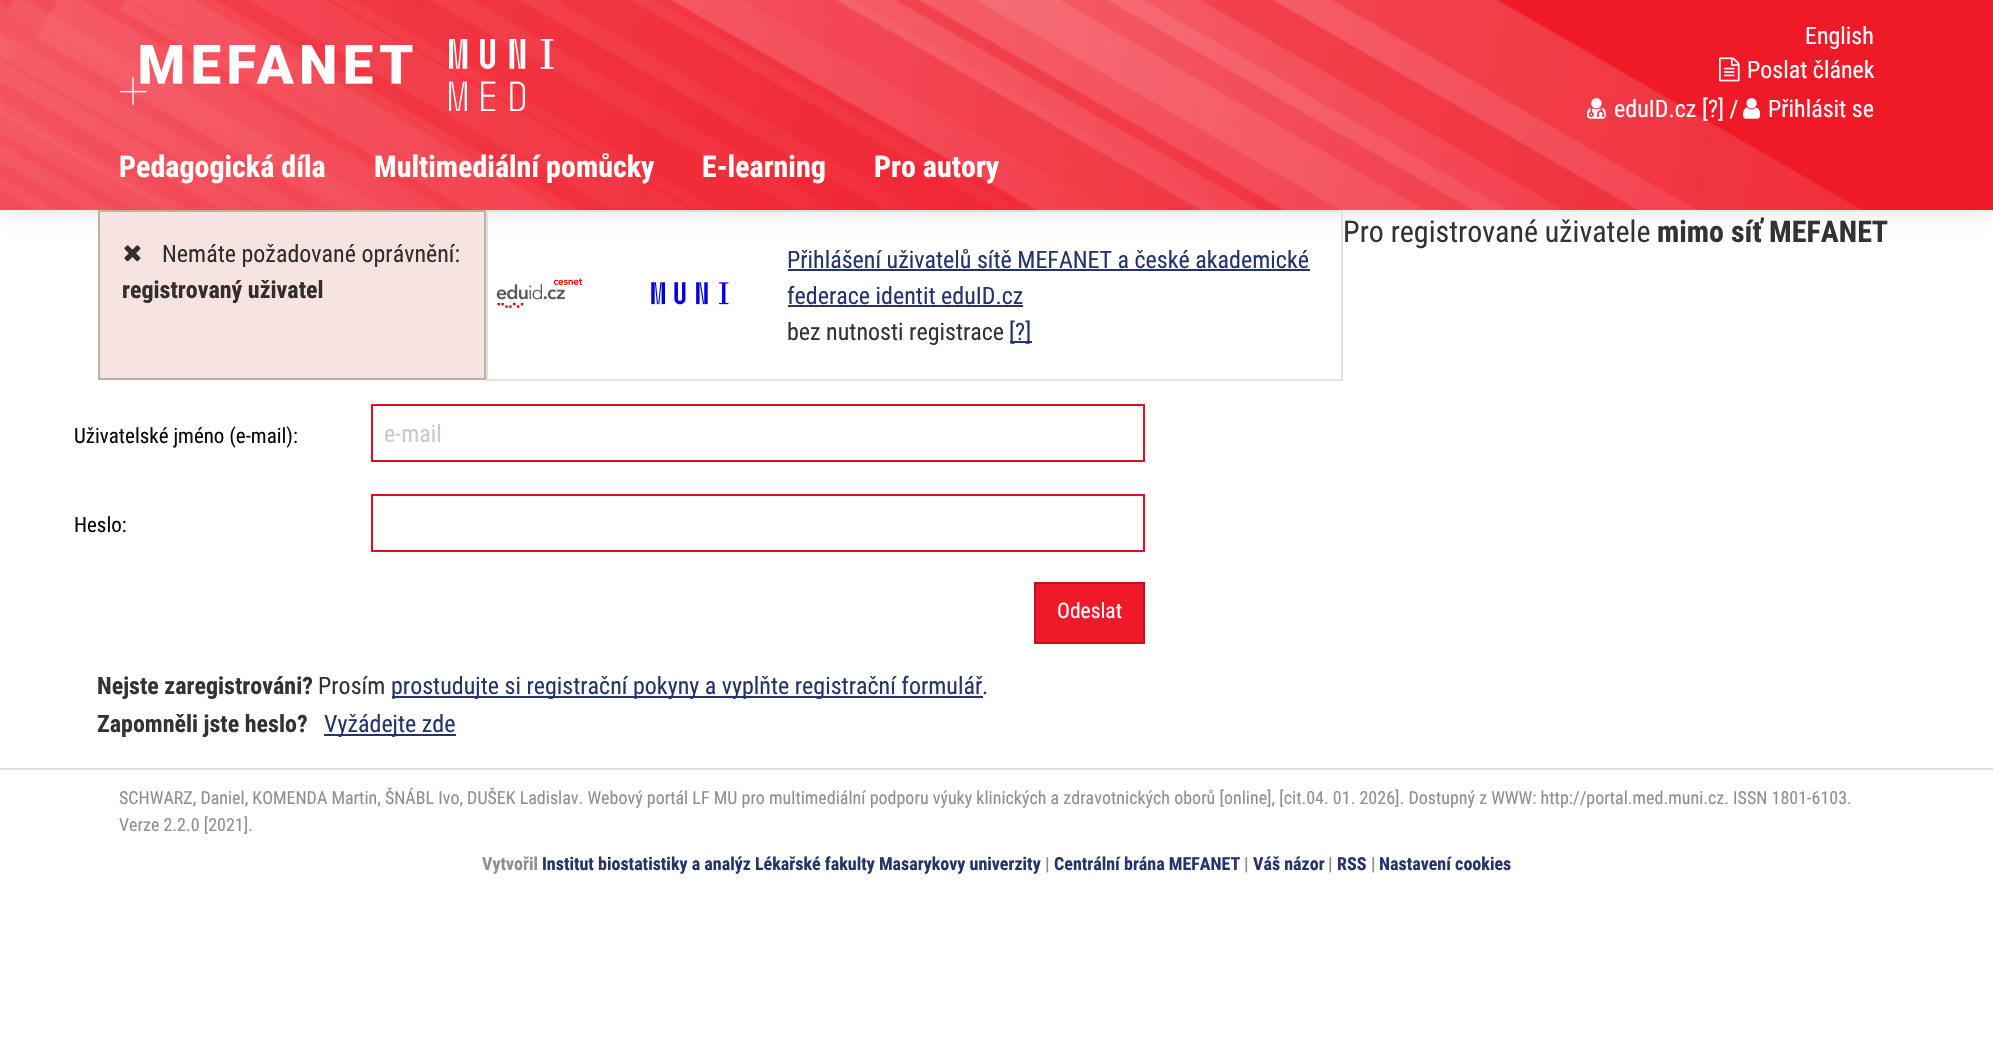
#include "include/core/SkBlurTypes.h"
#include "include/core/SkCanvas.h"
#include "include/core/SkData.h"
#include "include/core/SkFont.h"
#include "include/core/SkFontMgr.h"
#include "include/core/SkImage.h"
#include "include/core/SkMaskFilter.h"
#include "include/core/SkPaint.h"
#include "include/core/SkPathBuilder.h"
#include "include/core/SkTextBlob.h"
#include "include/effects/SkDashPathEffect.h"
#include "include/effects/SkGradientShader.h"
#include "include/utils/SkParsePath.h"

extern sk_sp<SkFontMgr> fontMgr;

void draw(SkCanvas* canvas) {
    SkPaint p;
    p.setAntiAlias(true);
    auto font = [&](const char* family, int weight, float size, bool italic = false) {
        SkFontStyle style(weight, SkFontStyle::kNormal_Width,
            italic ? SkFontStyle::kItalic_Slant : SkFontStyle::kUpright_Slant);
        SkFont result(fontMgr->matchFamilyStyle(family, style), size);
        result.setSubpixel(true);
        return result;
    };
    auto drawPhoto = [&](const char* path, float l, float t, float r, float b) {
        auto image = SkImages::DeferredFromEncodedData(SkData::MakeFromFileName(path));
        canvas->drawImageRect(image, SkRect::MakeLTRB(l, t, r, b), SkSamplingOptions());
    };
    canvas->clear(0xFFFFFFFF);
    p.setColor(0x33373535);
    p.setMaskFilter(SkMaskFilter::MakeBlur(kNormal_SkBlurStyle, 15));
    canvas->drawRect(SkRect::MakeLTRB(0, -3, 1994, 207), p);
    p.setMaskFilter(nullptr);
    p.setColor(0xFFF01928);
    canvas->drawRect(SkRect::MakeLTRB(0, 0, 1993, 210), p);
    drawPhoto("media/1.png", 0, 0, 1863, 210);
    drawPhoto("media/2.png", 120, 45, 413, 105);
    drawPhoto("media/3.png", 449, 39, 554, 111);
    auto font1 = font("Roboto Condensed", 400, 24);
    p.setColor(0xFFFFFFFF);
    canvas->drawString("English", 1805, 44, font1, p);
    drawPhoto("media/4.png", 1719, 57, 1740, 82);
    canvas->drawString("Poslat článek", 1747, 78, font1, p);
    drawPhoto("media/5.png", 1587, 98, 1606, 119);
    canvas->drawString("eduID.cz [?] /", 1614, 117, font1, p);
    drawPhoto("media/6.png", 1743, 98, 1761, 119);
    canvas->drawString("Přihlásit se", 1768, 117, font1, p);
    auto font2 = font("Roboto Condensed", 700, 30);
    {
        const struct { const char* s; float x, y; } items[] = {
            {"Pedagogická díla", 119, 177},
            {"Multimediální pomůcky", 374, 177},
            {"E-learning", 702, 177},
            {"Pro autory", 874, 177},
        };
        for (auto [s, x, y] : items) {
            canvas->drawString(s, x, y, font2, p);
        }
    }
    auto font3 = font("Roboto Condensed", 400, 30);
    p.setColor(0xFF333333);
    canvas->drawString("Pro registrované uživatele", 1343, 242, font3, p);
    canvas->drawString("mimo síť MEFANET", 1657, 242, font2, p);
    p.setColor(0xFFF7E4E1);
    canvas->drawRect(SkRect::MakeLTRB(99, 211, 485, 379), p);
    p.setStyle(SkPaint::kStroke_Style);
    p.setStrokeWidth(2);
    p.setColor(0xFFBCAEAB);
    canvas->drawRect(SkRect::MakeLTRB(99, 211, 485, 379), p);
    drawPhoto("media/7.png", 124, 245, 141, 262);
    p.setStyle(SkPaint::kFill_Style);
    p.setColor(0xFF312E2D);
    canvas->drawString("Nemáte požadované oprávnění:", 162, 262, font1, p);
    auto font4 = font("Roboto Condensed", 700, 24);
    canvas->drawString("registrovaný uživatel", 122, 298, font4, p);
    p.setStyle(SkPaint::kStroke_Style);
    p.setColor(0xFFE1E1E5);
    canvas->drawRect(SkRect::MakeLTRB(487, 211, 1342, 380), p);
    drawPhoto("media/8.png", 496, 278, 583, 308);
    drawPhoto("media/9.png", 651, 282, 729, 305);
    p.setStyle(SkPaint::kFill_Style);
    p.setColor(0xFF25346A);
    canvas->drawString("Přihlášení uživatelů sítě MEFANET a české akademické", 787, 268, font1, p);
    canvas->drawRect(SkRect::MakeLTRB(788, 269, 1310, 271), p);
    canvas->drawString("federace identit eduID.cz", 787, 304, font1, p);
    canvas->drawRect(SkRect::MakeLTRB(788, 305, 1023, 307), p);
    p.setColor(0xFF333333);
    canvas->drawString("bez nutnosti registrace", 787, 340, font1, p);
    p.setColor(0xFF25346A);
    canvas->drawRect(SkRect::MakeLTRB(1010, 341, 1032, 343), p);
    canvas->drawString("[?]", 1009, 340, font1, p);
    auto font5 = font("Roboto Condensed", 400, 21);
    p.setColor(0xFF0A0A0A);
    canvas->drawString("Uživatelské jméno (e-mail):", 74, 443, font5, p);
    p.setStyle(SkPaint::kStroke_Style);
    p.setColor(0xFFE10F1D);
    canvas->drawRect(SkRect::MakeLTRB(372, 405, 1144, 461), p);
    p.setStyle(SkPaint::kFill_Style);
    p.setColor(0xFFCACACA);
    canvas->drawString("e-mail", 384, 442, font1, p);
    p.setColor(0xFF0A0A0A);
    canvas->drawString("Heslo:", 74, 532, font5, p);
    p.setStyle(SkPaint::kStroke_Style);
    p.setColor(0xFFE10F1D);
    canvas->drawRect(SkRect::MakeLTRB(372, 495, 1144, 551), p);
    p.setStyle(SkPaint::kFill_Style);
    p.setColor(0xFFF01928);
    canvas->drawRect(SkRect::MakeLTRB(1035, 583, 1144, 643), p);
    p.setStyle(SkPaint::kStroke_Style);
    p.setColor(0xFFC90D1A);
    canvas->drawRect(SkRect::MakeLTRB(1035, 583, 1144, 643), p);
    auto font6 = font("Roboto Condensed", 400, 21.5f);
    p.setStyle(SkPaint::kFill_Style);
    p.setColor(0xFFFFFFFF);
    canvas->drawString("Odeslat", 1057, 618, font6, p);
    p.setColor(0xFF333333);
    canvas->drawString("Nejste zaregistrováni?", 97, 694, font4, p);
    canvas->drawString("Prosím", 318, 694, font1, p);
    p.setColor(0xFF25346A);
    canvas->drawRect(SkRect::MakeLTRB(392, 696, 983, 698), p);
    canvas->drawString("prostudujte si registrační pokyny a vyplňte registrační formulář", 391, 694, font1, p);
    p.setColor(0xFF333333);
    canvas->drawString(".", 982, 694, font1, p);
    canvas->drawString("Zapomněli jste heslo?", 97, 732, font4, p);
    p.setColor(0xFF25346A);
    canvas->drawRect(SkRect::MakeLTRB(324, 734, 456, 736), p);
    canvas->drawString("Vyžádejte zde", 324, 732, font1, p);
    p.setColor(0xFFE1E1E5);
    canvas->drawRect(SkRect::MakeLTRB(0, 768, 1993, 770), p);
    auto font7 = font("Roboto Condensed", 400, 18);
    p.setColor(0xFF8F8F8F);
    canvas->drawString("SCHWARZ, Daniel, KOMENDA Martin, ŠNÁBL Ivo, DUŠEK Ladislav. Webový portál LF MU pro multimediální podporu výuky klinických a zdravotnických oborů [online], [cit.04. 01. 2026]. Dostupný z WWW: http://portal.med.muni.cz. ISSN 1801-6103.", 119, 804, font7, p);
    canvas->drawString("Verze 2.2.0 [2021].", 119, 831, font7, p);
    auto font8 = font("Roboto Condensed", 700, 18);
    canvas->drawString("Vytvořil", 482, 870, font8, p);
    p.setColor(0xFF25346A);
    canvas->drawString("Institut biostatistiky a analýz Lékařské fakulty Masarykovy univerzity", 542, 870, font8, p);
    p.setColor(0xFF8F8F8F);
    canvas->drawString("|", 1045, 870, font8, p);
    p.setColor(0xFF25346A);
    canvas->drawString("Centrální brána MEFANET", 1054, 870, font8, p);
    p.setColor(0xFF8F8F8F);
    canvas->drawString("|", 1244, 870, font8, p);
    p.setColor(0xFF25346A);
    canvas->drawString("Váš názor", 1253, 870, font8, p);
    p.setColor(0xFF8F8F8F);
    canvas->drawString("|", 1328, 870, font8, p);
    p.setColor(0xFF25346A);
    canvas->drawString("RSS", 1337, 870, font8, p);
    p.setColor(0xFF8F8F8F);
    canvas->drawString("|", 1371, 870, font8, p);
    p.setColor(0xFF25346A);
    canvas->drawString("Nastavení cookies", 1379, 870, font8, p);
}
